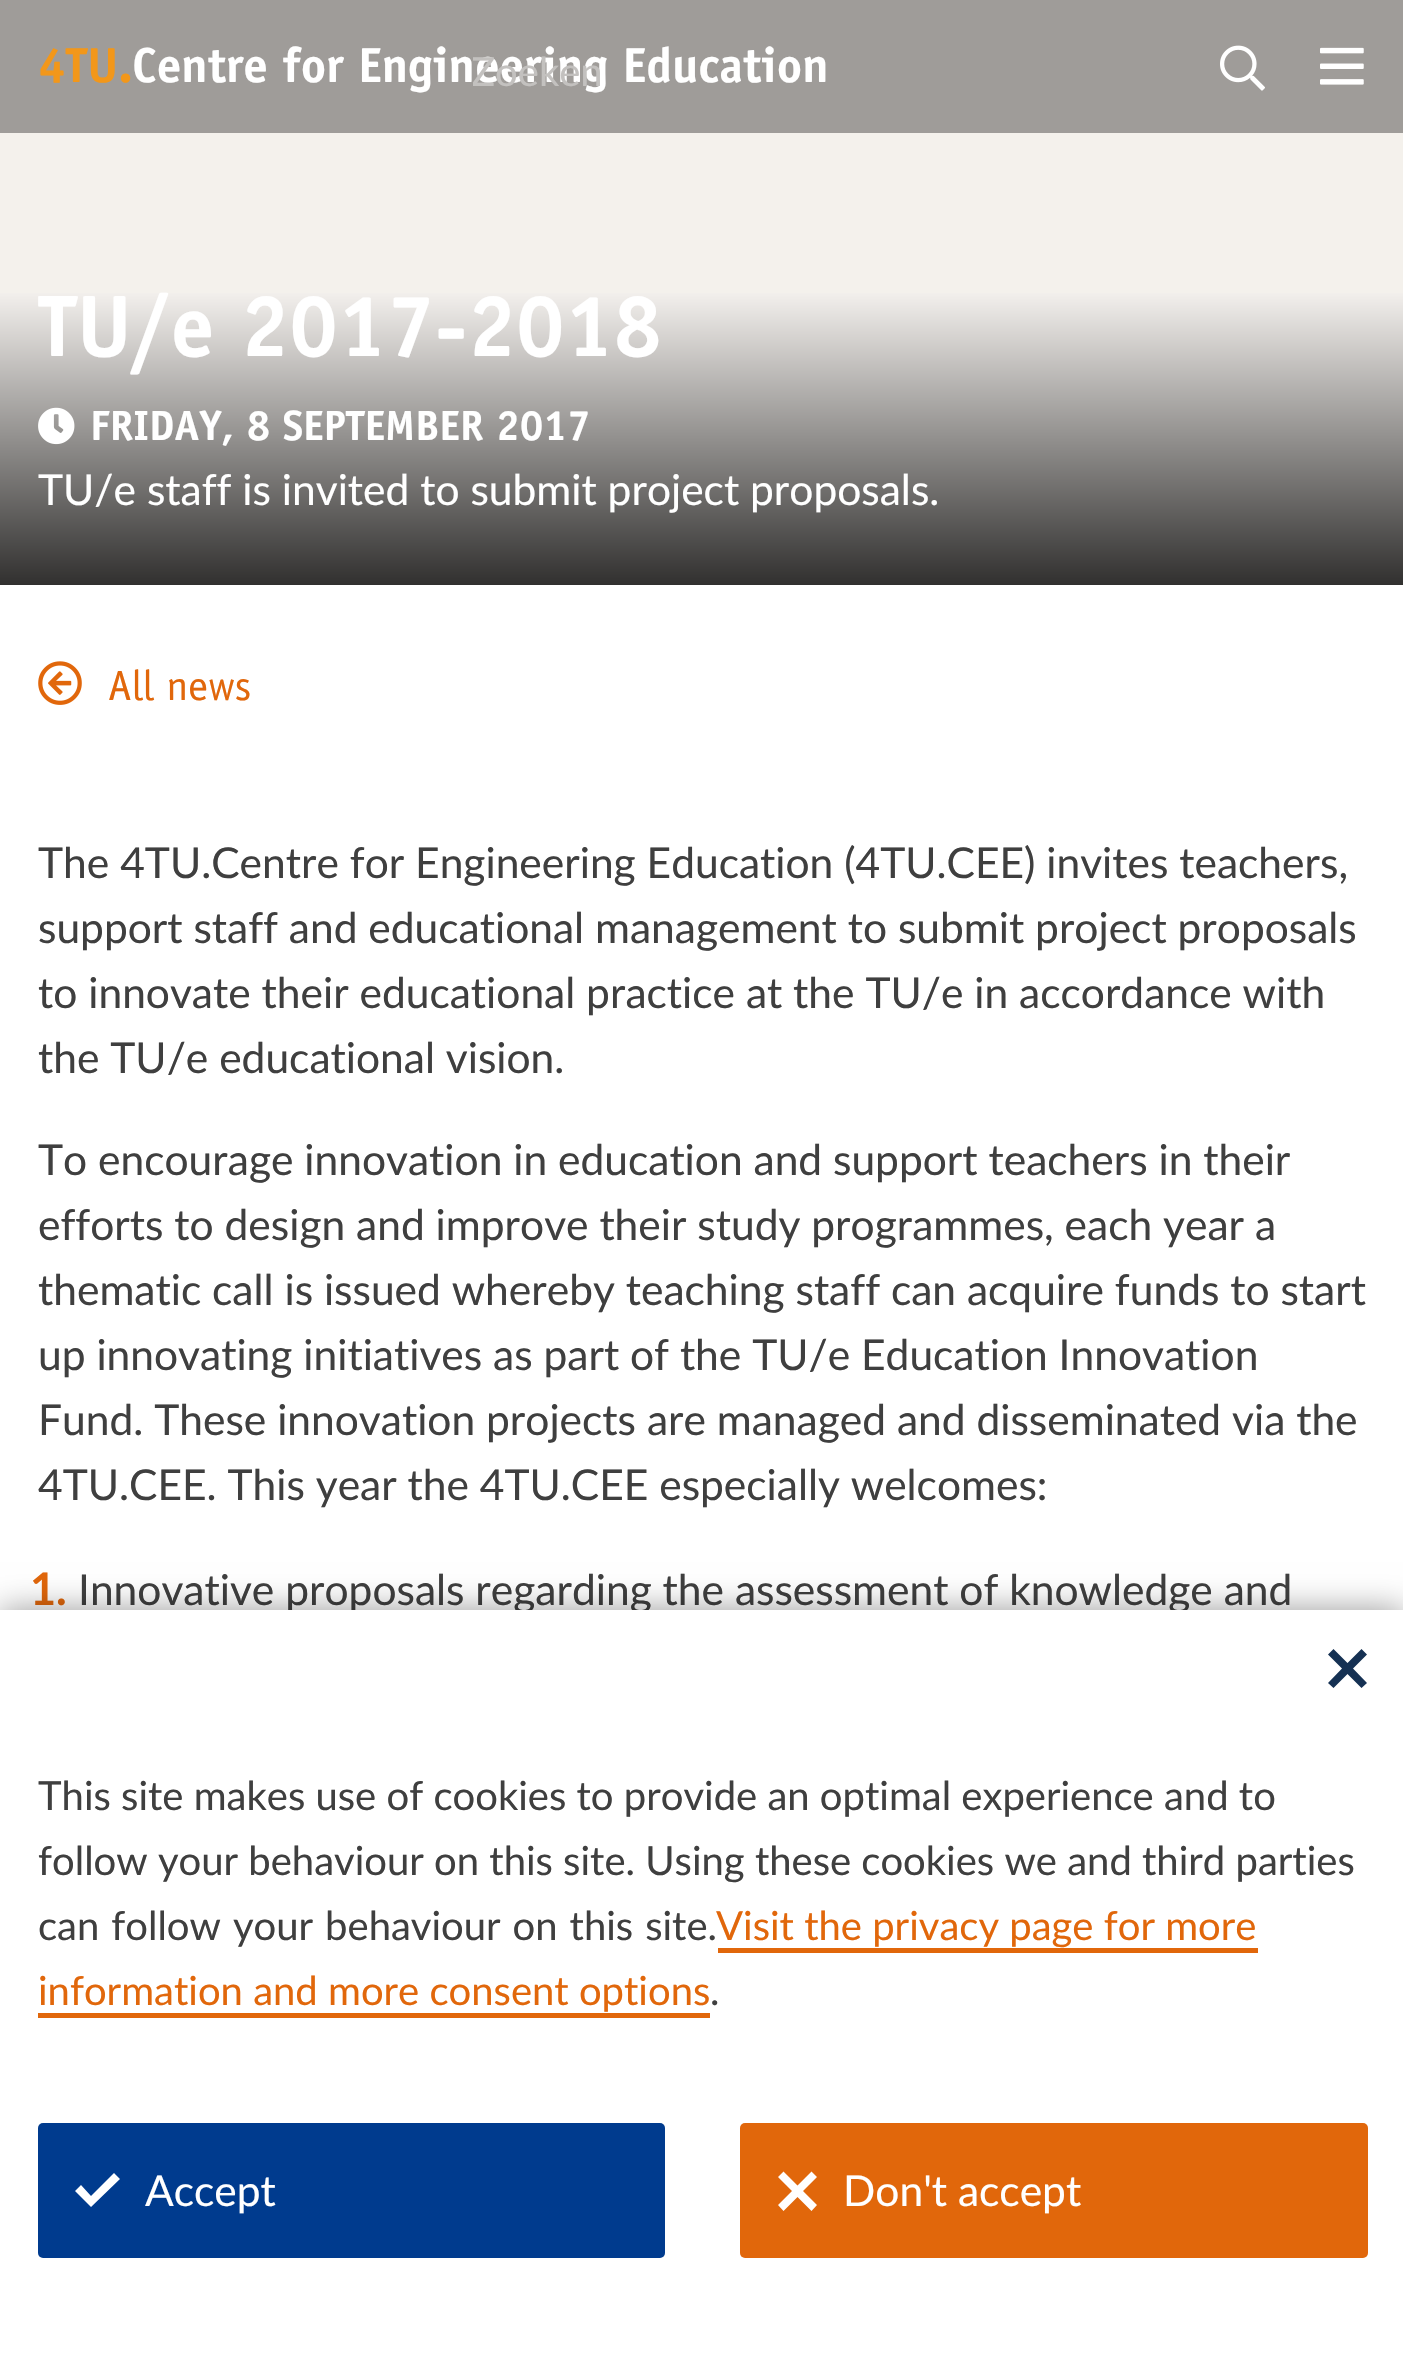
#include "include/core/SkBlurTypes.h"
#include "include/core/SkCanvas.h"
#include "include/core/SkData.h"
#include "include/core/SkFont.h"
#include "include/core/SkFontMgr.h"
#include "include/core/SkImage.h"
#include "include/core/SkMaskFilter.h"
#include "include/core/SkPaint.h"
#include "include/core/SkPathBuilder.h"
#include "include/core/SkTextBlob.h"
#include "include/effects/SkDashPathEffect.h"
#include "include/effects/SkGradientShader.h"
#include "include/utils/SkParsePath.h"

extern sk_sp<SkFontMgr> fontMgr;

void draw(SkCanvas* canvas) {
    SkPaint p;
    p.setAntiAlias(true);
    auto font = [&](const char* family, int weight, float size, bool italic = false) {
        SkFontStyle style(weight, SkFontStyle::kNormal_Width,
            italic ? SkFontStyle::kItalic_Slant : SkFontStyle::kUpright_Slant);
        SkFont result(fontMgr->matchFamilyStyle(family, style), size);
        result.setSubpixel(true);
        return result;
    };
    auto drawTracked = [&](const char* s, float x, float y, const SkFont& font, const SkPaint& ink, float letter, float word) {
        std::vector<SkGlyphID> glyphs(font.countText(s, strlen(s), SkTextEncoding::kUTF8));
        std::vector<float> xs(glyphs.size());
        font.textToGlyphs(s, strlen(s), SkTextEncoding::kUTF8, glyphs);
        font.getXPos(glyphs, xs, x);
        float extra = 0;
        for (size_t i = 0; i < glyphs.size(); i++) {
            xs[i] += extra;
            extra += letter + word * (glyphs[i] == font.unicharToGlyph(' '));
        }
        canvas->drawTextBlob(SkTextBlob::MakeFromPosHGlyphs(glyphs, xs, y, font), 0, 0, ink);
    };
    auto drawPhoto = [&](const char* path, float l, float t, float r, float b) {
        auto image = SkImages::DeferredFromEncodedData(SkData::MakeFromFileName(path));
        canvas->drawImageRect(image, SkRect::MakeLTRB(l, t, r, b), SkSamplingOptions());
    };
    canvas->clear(0xFFFFFFFF);
    p.setColor(0xFF9F9C99);
    canvas->drawRect(SkRect::MakeLTRB(0, 0, 1403, 133), p);
    auto font1 = font("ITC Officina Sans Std", 700, 49.25f);
    p.setColor(0xFFF2971A);
    canvas->drawString("4TU.", 38, 82, font1, p);
    p.setColor(0xFFFFFFFF);
    canvas->drawString("Centre for Engineering Education", 132, 82, font1, p);
    canvas->save();
    canvas->clipRect(SkRect::MakeLTRB(473, 48, 1268, 95));
    auto font2 = font("Lato", 400, 40);
    p.setColor(0xFFC3C1BF);
    canvas->drawString("Zoeken", 471, 86, font2, p);
    canvas->restore();
    drawPhoto("media/1.png", 1220, 45, 1265, 91);
    drawPhoto("media/2.png", 1320, 47, 1364, 85);
    p.setColor(0xFFF4F1EC);
    canvas->drawRect(SkRect::MakeLTRB(0, 133, 1403, 293), p);
    {
        const SkColor colors[] = {0xFFF3F0ED, 0xFF31302F};
        const float stops[] = {0, 1};
        const SkPoint ends[] = {{703, 292}, {703, 585}};
        p.setShader(SkGradientShader::MakeLinear(ends, colors, stops, 2, SkTileMode::kClamp));
        p.setAlpha(255);
    }
    canvas->drawRect(SkRect::MakeLTRB(0, 293, 1403, 585), p);
    auto font3 = font("ITC Officina Sans Std", 700, 87.5f);
    p.setShader(nullptr);
    p.setColor(0xFFFFFFFF);
    canvas->drawString("TU/e 2017-2018", 38, 356, font3, p);
    drawPhoto("media/3.png", 38, 407, 75, 445);
    auto font4 = font("ITC Officina Sans Std", 700, 42.5f);
    canvas->drawString("FRIDAY, 8 SEPTEMBER 2017", 90, 440, font4, p);
    auto font5 = font("Lato", 400, 42.5f);
    canvas->drawString("TU/e staff is invited to submit project proposals.", 38, 505, font5, p);
    drawPhoto("media/4.png", 38, 661, 82, 705);
    auto font6 = font("ITC Officina Sans Std", 400, 42.5f);
    p.setColor(0xFFE1670B);
    canvas->drawString("All news", 108, 700, font6, p);
    p.setColor(0xFF3F3F3F);
    {
        const struct { const char* s; float x, y; } items[] = {
            {"The 4TU.Centre for Engineering Education (4TU.CEE) invites teachers,", 38, 878},
            {"support staff and educational management to submit project proposals", 38, 943},
            {"to innovate their educational practice at the TU/e in accordance with", 38, 1008},
            {"the TU/e educational vision.", 38, 1073},
            {"To encourage innovation in education and support teachers in their", 38, 1175},
            {"efforts to design and improve their study programmes, each year a", 38, 1240},
            {"thematic call is issued whereby teaching staff can acquire funds to start", 38, 1305},
            {"up innovating initiatives as part of the TU/e Education Innovation", 38, 1370},
            {"Fund. These innovation projects are managed and disseminated via the", 38, 1435},
            {"4TU.CEE. This year the 4TU.CEE especially welcomes:", 38, 1500},
        };
        for (auto [s, x, y] : items) {
            canvas->drawString(s, x, y, font5, p);
        }
    }
    auto font7 = font("Lato", 700, 45);
    p.setColor(0xFFE1670B);
    canvas->drawString("1.", 30, 1605, font7, p);
    p.setColor(0xFF3F3F3F);
    canvas->drawString("Innovative proposals regarding the assessment of knowledge and", 78, 1605, font5, p);
    p.setColor(0x66000000);
    p.setMaskFilter(SkMaskFilter::MakeBlur(kNormal_SkBlurStyle, 16));
    canvas->drawRect(SkRect::MakeLTRB(0, 1610, 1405, 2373), p);
    p.setMaskFilter(nullptr);
    p.setColor(0xFFFFFFFF);
    canvas->drawRect(SkRect::MakeLTRB(0, 1610, 1403, 2371), p);
    p.setColor(0xFF153153);
    canvas->drawPath(SkPathBuilder().moveTo(1333.5f, 1688).lineTo(1328, 1683).lineTo(1342, 1668.5f).lineTo(1328, 1654.5f).lineTo(1333.5f, 1649).lineTo(1347.5f, 1663).lineTo(1361.5f, 1649).lineTo(1367, 1654.5f).lineTo(1353, 1668.5f).lineTo(1367, 1683).lineTo(1361.5f, 1688).lineTo(1347.5f, 1674).close().detach(), p);
    p.setColor(0xFF3F3F3F);
    canvas->drawString("This site makes use of cookies to provide an optimal experience and to", 38, 1810, font2, p);
    canvas->drawString("follow your behaviour on this site. Using these cookies we and third parties", 38, 1875, font2, p);
    drawTracked("can follow your behaviour on this site.", 38, 1940, font2, p, 0, 1.75f);
    p.setColor(0xFFE1670B);
    canvas->drawString("Visit the privacy page for more", 716, 1940, font2, p);
    canvas->drawRect(SkRect::MakeLTRB(718, 1948, 1258, 1953), p);
    canvas->drawString("information and more consent options", 38, 2005, font2, p);
    canvas->drawRect(SkRect::MakeLTRB(38, 2013, 710, 2018), p);
    p.setColor(0xFF3F3F3F);
    canvas->drawString(".", 710, 2005, font2, p);
    p.setColor(0xFF003B8E);
    canvas->drawRoundRect(SkRect::MakeLTRB(38, 2123, 665, 2258), 5, 5, p);
    p.setColor(0xFFFFFFFF);
    canvas->drawPath(SkPathBuilder().moveTo(91, 2207).lineTo(75, 2191).lineTo(81, 2185).lineTo(91, 2196).lineTo(114, 2173).lineTo(120, 2179).close().detach(), p);
    canvas->drawString("Accept", 145, 2206, font5, p);
    p.setColor(0xFFE1670B);
    canvas->drawRoundRect(SkRect::MakeLTRB(740, 2123, 1368, 2258), 5, 5, p);
    p.setColor(0xFFFFFFFF);
    canvas->drawPath(SkPathBuilder().moveTo(783.5f, 2211).lineTo(778, 2205).lineTo(792, 2191).lineTo(778, 2177).lineTo(783.5f, 2171.5f).lineTo(797.5f, 2185.5f).lineTo(811.5f, 2171.5f).lineTo(817, 2177).lineTo(803, 2191).lineTo(817, 2205).lineTo(811.5f, 2211).lineTo(797.5f, 2197).close().detach(), p);
    canvas->drawString("Don't accept", 843, 2206, font5, p);
}
